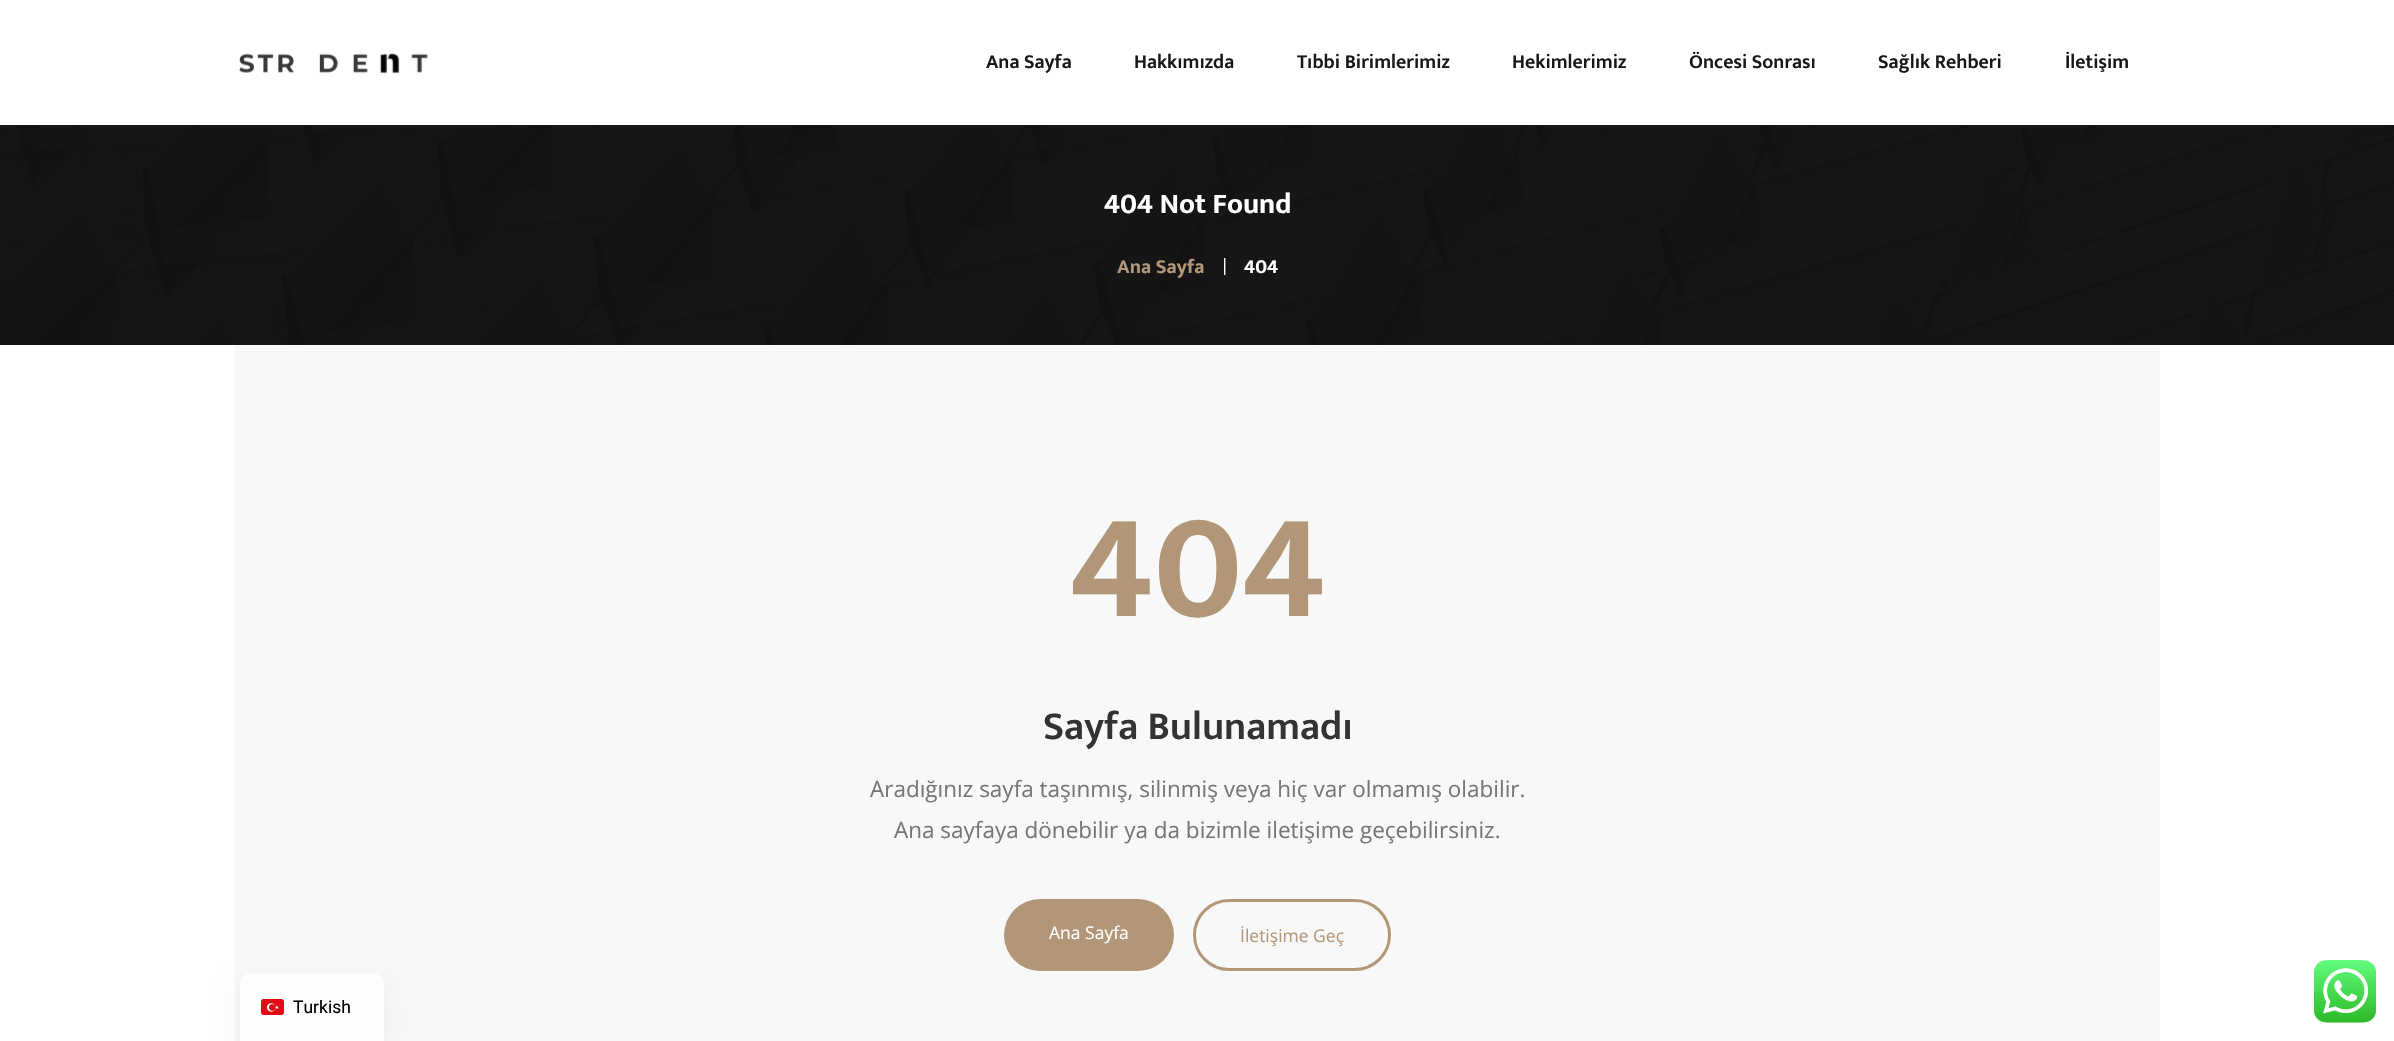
#include "include/core/SkBlurTypes.h"
#include "include/core/SkCanvas.h"
#include "include/core/SkData.h"
#include "include/core/SkFont.h"
#include "include/core/SkFontMgr.h"
#include "include/core/SkImage.h"
#include "include/core/SkMaskFilter.h"
#include "include/core/SkPaint.h"
#include "include/core/SkPathBuilder.h"
#include "include/core/SkTextBlob.h"
#include "include/effects/SkDashPathEffect.h"
#include "include/effects/SkGradientShader.h"
#include "include/utils/SkParsePath.h"

extern sk_sp<SkFontMgr> fontMgr;

void draw(SkCanvas* canvas) {
    SkPaint p;
    p.setAntiAlias(true);
    auto font = [&](const char* family, int weight, float size, bool italic = false) {
        SkFontStyle style(weight, SkFontStyle::kNormal_Width,
            italic ? SkFontStyle::kItalic_Slant : SkFontStyle::kUpright_Slant);
        SkFont result(fontMgr->matchFamilyStyle(family, style), size);
        result.setSubpixel(true);
        return result;
    };
    auto drawPhoto = [&](const char* path, float l, float t, float r, float b) {
        auto image = SkImages::DeferredFromEncodedData(SkData::MakeFromFileName(path));
        canvas->drawImageRect(image, SkRect::MakeLTRB(l, t, r, b), SkSamplingOptions());
    };
    canvas->clear(0xFFFFFFFF);
    drawPhoto("media/1.png", 239, 53, 428, 74);
    auto font1 = font("Mukta", 600, 20);
    p.setColor(0xFF181818);
    {
        const struct { const char* s; float x, y; } items[] = {
            {"Ana Sayfa", 986, 68},
            {"Hakkımızda", 1134, 68},
            {"Tıbbi Birimlerimiz", 1297, 68},
            {"Hekimlerimiz", 1512, 68},
            {"Öncesi Sonrası", 1689, 68},
            {"Sağlık Rehberi", 1878, 68},
            {"İletişim", 2065, 68},
        };
        for (auto [s, x, y] : items) {
            canvas->drawString(s, x, y, font1, p);
        }
    }
    drawPhoto("media/2.png", 0, 125, 2394, 345);
    auto font2 = font("Mukta", 700, 28.75f);
    p.setColor(0xFFFFFFFF);
    canvas->drawString("404 Not Found", 1104, 213, font2, p);
    auto font3 = font("Mukta", 700, 20);
    p.setColor(0xFFB19777);
    canvas->drawString("Ana Sayfa", 1117, 273, font3, p);
    p.setColor(0xFF737373);
    canvas->drawRect(SkRect::MakeLTRB(1225, 258, 1226, 275), p);
    p.setColor(0xFFFFFFFF);
    canvas->drawRect(SkRect::MakeLTRB(1224, 258, 1225, 275), p);
    canvas->drawString("404", 1244, 273, font3, p);
    p.setColor(0xFFF8F8F8);
    canvas->drawRect(SkRect::MakeLTRB(235, 345, 2160, 1041), p);
    auto font4 = font("Mukta", 700, 150);
    p.setColor(0xFFB19777);
    canvas->drawString("404", 1070, 616, font4, p);
    auto font5 = font("Mukta", 600, 40);
    p.setColor(0xFF333333);
    canvas->drawString("Sayfa Bulunamadı", 1043, 739, font5, p);
    auto font6 = font("Open Sans", 400, 22.5f);
    p.setColor(0xFF777777);
    canvas->drawString("Aradığınız sayfa taşınmış, silinmiş veya hiç var olmamış olabilir.", 870, 797, font6, p);
    canvas->drawString("Ana sayfaya dönebilir ya da bizimle iletişime geçebilirsiniz.", 894, 838, font6, p);
    p.setColor(0xFFB19777);
    canvas->drawRoundRect(SkRect::MakeLTRB(1004, 899, 1174, 971), 36, 36, p);
    auto font7 = font("Open Sans", 400, 17.5f);
    p.setColor(0xFFFFFFFF);
    canvas->drawString("Ana Sayfa", 1049, 939, font7, p);
    p.setStyle(SkPaint::kStroke_Style);
    p.setStrokeWidth(3);
    p.setColor(0xFFB19777);
    canvas->drawRoundRect(SkRect::MakeLTRB(1194.5f, 900.5f, 1389.5f, 969.5f), 34.5f, 34.5f, p);
    p.setStyle(SkPaint::kFill_Style);
    canvas->drawString("İletişime Geç", 1240, 942, font7, p);
    p.setColor(0x0D000000);
    p.setMaskFilter(SkMaskFilter::MakeBlur(kNormal_SkBlurStyle, 12.5f));
    canvas->drawRoundRect(SkRect::MakeLTRB(240, 985, 384, 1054), 10, 10, p);
    p.setMaskFilter(nullptr);
    p.setColor(0xFFFDFDFD);
    canvas->drawPath(SkPathBuilder().moveTo(250, 973).lineTo(374, 973).cubicTo(379.5f, 973, 384, 977.5f, 384, 983).lineTo(384, 1041).lineTo(240, 1041).lineTo(240, 983).cubicTo(240, 977.5f, 244.5f, 973, 250, 973).close().detach(), p);
    drawPhoto("media/3.png", 261, 999, 284, 1015);
    auto font8 = font("Roboto", 400, 17.5f);
    p.setColor(0xFF000000);
    canvas->drawString("Turkish", 293, 1013, font8, p);
    drawPhoto("media/4.png", 2314, 960, 2376, 1023);
}
